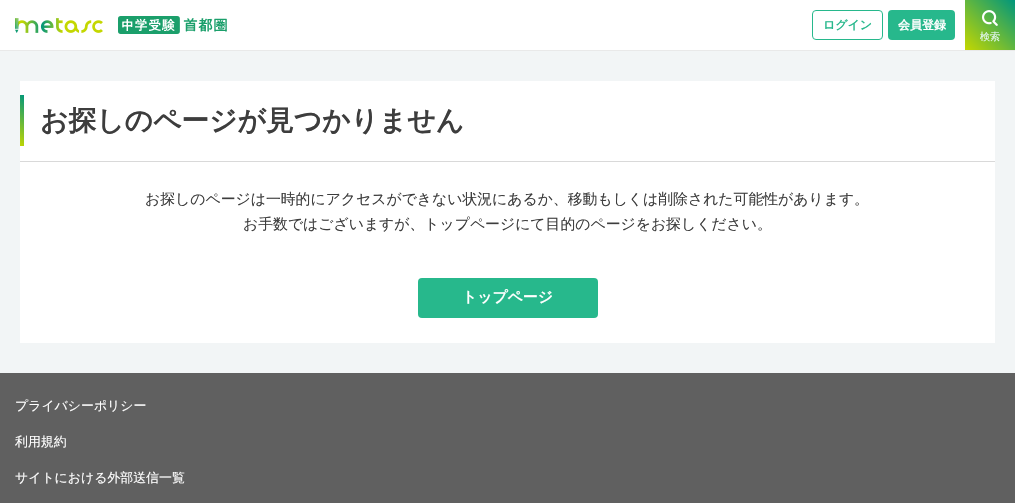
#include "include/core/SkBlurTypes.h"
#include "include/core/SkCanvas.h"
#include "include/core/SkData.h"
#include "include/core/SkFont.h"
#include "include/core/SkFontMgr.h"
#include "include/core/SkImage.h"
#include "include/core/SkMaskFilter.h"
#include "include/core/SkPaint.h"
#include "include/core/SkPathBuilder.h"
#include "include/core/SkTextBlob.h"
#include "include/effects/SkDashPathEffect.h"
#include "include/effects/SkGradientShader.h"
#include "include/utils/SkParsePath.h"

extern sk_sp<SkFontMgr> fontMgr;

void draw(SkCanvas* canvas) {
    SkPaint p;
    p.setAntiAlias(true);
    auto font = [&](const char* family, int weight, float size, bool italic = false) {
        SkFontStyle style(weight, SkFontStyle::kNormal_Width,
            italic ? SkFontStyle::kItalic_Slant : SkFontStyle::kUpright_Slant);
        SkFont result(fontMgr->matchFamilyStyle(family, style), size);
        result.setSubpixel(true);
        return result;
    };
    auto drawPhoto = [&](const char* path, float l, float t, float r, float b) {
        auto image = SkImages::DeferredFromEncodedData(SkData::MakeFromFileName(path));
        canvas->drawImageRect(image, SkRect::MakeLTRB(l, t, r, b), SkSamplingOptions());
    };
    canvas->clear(0xFFF2F5F6);
    p.setColor(0xFFFFFFFF);
    canvas->drawRect(SkRect::MakeLTRB(0, 0, 965, 50), p);
    p.setColor(0xFFE9E9E9);
    canvas->drawRect(SkRect::MakeLTRB(0, 50, 1015, 51), p);
    drawPhoto("media/1.png", 15, 18, 103, 33);
    drawPhoto("media/2.png", 118, 16, 227, 34);
    p.setStyle(SkPaint::kStroke_Style);
    p.setStrokeWidth(1);
    p.setColor(0xFF27B88C);
    canvas->drawRoundRect(SkRect::MakeLTRB(812.5f, 10.5f, 882.5f, 39.5f), 3.5f, 3.5f, p);
    auto font1 = font("WenQuanYi Zen Hei", 700, 12);
    p.setStyle(SkPaint::kFill_Style);
    canvas->drawString("ログイン", 823, 29, font1, p);
    canvas->drawRoundRect(SkRect::MakeLTRB(888, 10, 955, 40), 4, 4, p);
    p.setColor(0xFFFFFFFF);
    canvas->drawString("会員登録", 898, 29, font1, p);
    {
        const SkColor colors[] = {0xFFC4D700, 0xFF00967C};
        const float stops[] = {0, 1};
        const SkPoint ends[] = {{965, 50}, {1015, 0}};
        p.setShader(SkGradientShader::MakeLinear(ends, colors, stops, 2, SkTileMode::kClamp));
        p.setAlpha(255);
    }
    canvas->drawRect(SkRect::MakeLTRB(965, 0, 1015, 50), p);
    drawPhoto("media/3.png", 982, 10, 998, 26);
    auto font2 = font("WenQuanYi Zen Hei", 500, 10);
    p.setShader(nullptr);
    p.setColor(0xFFE4F8F3);
    canvas->drawString("検索", 980, 40, font2, p);
    p.setColor(0xFFFFFFFF);
    canvas->drawRect(SkRect::MakeLTRB(20, 81, 995, 161), p);
    p.setColor(0xFFD9D9D9);
    canvas->drawRect(SkRect::MakeLTRB(20, 161, 995, 162), p);
    {
        const SkColor colors[] = {0xFFC4D700, 0xFF00967C};
        const float stops[] = {0, 1};
        const SkPoint ends[] = {{8, 134}, {36, 107}};
        p.setShader(SkGradientShader::MakeLinear(ends, colors, stops, 2, SkTileMode::kClamp));
        p.setAlpha(255);
    }
    canvas->drawRect(SkRect::MakeLTRB(20, 95, 24, 146), p);
    auto font3 = font("WenQuanYi Zen Hei", 700, 27.75f);
    p.setShader(nullptr);
    p.setColor(0xFF3D3D3D);
    canvas->drawString("お探しのページが見つかりません", 40, 130, font3, p);
    p.setColor(0xFFFFFFFF);
    canvas->drawRect(SkRect::MakeLTRB(20, 162, 995, 343), p);
    auto font4 = font("WenQuanYi Zen Hei", 500, 14.85f);
    p.setColor(0xFF3D3D3D);
    canvas->drawString("お探しのページは一時的にアクセスができない状況にあるか、移動もしくは削除された可能性があります。", 145, 204, font4, p);
    canvas->drawString("お手数ではございますが、トップページにて目的のページをお探しください。", 243, 229, font4, p);
    p.setColor(0xFF27B88C);
    canvas->drawRoundRect(SkRect::MakeLTRB(418, 278, 598, 318), 4, 4, p);
    auto font5 = font("WenQuanYi Zen Hei", 700, 14.85f);
    p.setColor(0xFFFFFFFF);
    canvas->drawString("トップページ", 462, 302, font5, p);
    p.setColor(0xFF606060);
    canvas->drawRect(SkRect::MakeLTRB(0, 373, 1015, 503), p);
    auto font6 = font("WenQuanYi Zen Hei", 500, 12.9f);
    p.setColor(0xFFFFFFFF);
    {
        const struct { const char* s; float x, y; } items[] = {
            {"プライバシーポリシー", 15, 410},
            {"利用規約", 15, 446},
            {"サイトにおける外部送信一覧", 15, 482},
        };
        for (auto [s, x, y] : items) {
            canvas->drawString(s, x, y, font6, p);
        }
    }
}
